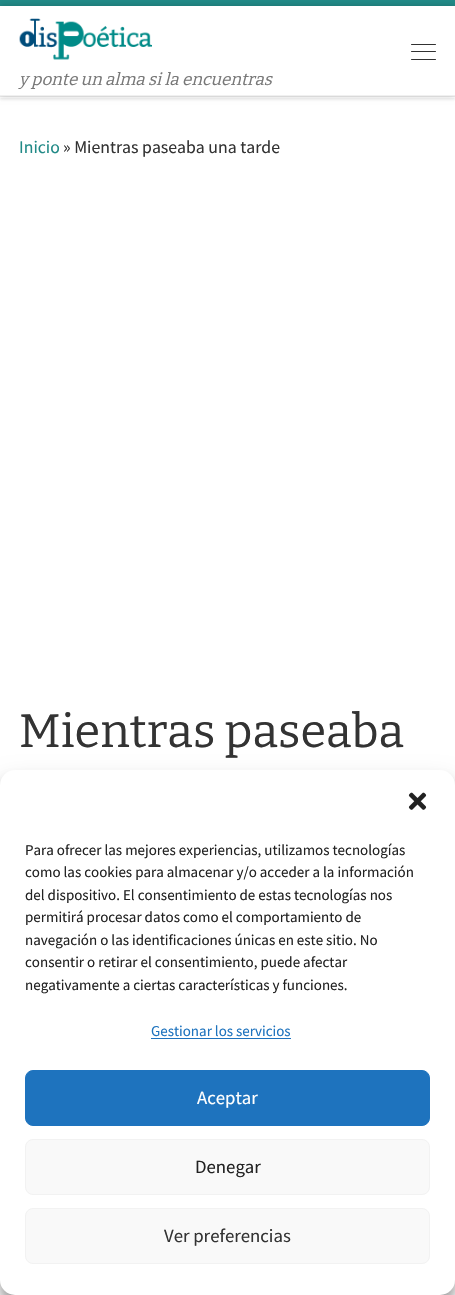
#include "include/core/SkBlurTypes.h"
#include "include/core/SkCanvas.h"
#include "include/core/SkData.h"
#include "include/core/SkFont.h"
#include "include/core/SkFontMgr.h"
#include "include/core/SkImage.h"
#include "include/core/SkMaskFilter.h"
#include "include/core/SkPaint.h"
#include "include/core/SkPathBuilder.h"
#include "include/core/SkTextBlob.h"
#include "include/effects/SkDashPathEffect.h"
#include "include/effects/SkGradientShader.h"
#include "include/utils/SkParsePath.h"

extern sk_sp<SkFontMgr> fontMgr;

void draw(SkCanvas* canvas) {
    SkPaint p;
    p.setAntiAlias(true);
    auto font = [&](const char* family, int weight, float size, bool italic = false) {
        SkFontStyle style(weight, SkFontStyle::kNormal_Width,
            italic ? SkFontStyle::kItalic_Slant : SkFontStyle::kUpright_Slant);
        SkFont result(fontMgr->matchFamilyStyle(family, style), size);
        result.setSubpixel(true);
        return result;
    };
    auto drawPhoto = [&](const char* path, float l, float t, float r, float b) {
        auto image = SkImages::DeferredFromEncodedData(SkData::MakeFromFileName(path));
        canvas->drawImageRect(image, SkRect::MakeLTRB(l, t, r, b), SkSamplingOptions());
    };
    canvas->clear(0xFFFFFFFF);
    p.setColor(0x14666666);
    p.setMaskFilter(SkMaskFilter::MakeBlur(kNormal_SkBlurStyle, 1));
    canvas->drawRect(SkRect::MakeLTRB(0, 3, 455, 100), p);
    p.setMaskFilter(nullptr);
    {
        const struct { float l, t, r, b; SkColor color; } items[] = {
            {0, 97, 455, 98, 0xFFFFFFFF},
            {0, 0, 455, 6, 0xFF218A87},
            {0, 96, 455, 97, 0xFFECECEC},
            {0, 96, 455, 97, 0x26FFFFFF},
        };
        for (auto [l, t, r, b, color] : items) {
            p.setColor(color);
            canvas->drawRect(SkRect::MakeLTRB(l, t, r, b), p);
        }
    }
    p.setColor(0x33000000);
    p.setMaskFilter(SkMaskFilter::MakeBlur(kNormal_SkBlurStyle, 3));
    canvas->drawRect(SkRect::MakeLTRB(0, 6, 455, 96), p);
    p.setMaskFilter(nullptr);
    p.setColor(0xFFFFFFFF);
    canvas->drawRect(SkRect::MakeLTRB(0, 6, 455, 95), p);
    p.setColor(0xFF313131);
    canvas->drawRoundRect(SkRect::MakeLTRB(411, 44, 436, 45), 0.5f, 0.5f, p);
    canvas->drawRoundRect(SkRect::MakeLTRB(411, 51, 436, 52), 0.5f, 0.5f, p);
    canvas->drawRoundRect(SkRect::MakeLTRB(411, 59, 436, 60), 0.5f, 0.5f, p);
    drawPhoto("media/1.png", 19, 18, 152, 60);
    auto font1 = font("Bitter", 100, 16.9f, true);
    p.setColor(0xFF777777);
    canvas->drawString("y ponte un alma si la encuentras", 19, 85, font1, p);
    p.setColor(0xFFF0F0F0);
    canvas->drawRect(SkRect::MakeLTRB(0, 95, 455, 96), p);
    auto font2 = font("Source Sans Pro", 400, 17.75f);
    p.setColor(0xFF218A87);
    canvas->drawString("Inicio", 19, 153, font2, p);
    p.setColor(0xFF333333);
    canvas->drawString("» Mientras paseaba una tarde", 63, 153, font2, p);
    auto font3 = font("Bitter", 100, 46.75f);
    canvas->drawString("Mientras paseaba", 19, 747, font3, p);
    p.setColor(0x12000000);
    p.setMaskFilter(SkMaskFilter::MakeBlur(kNormal_SkBlurStyle, 4));
    canvas->drawRect(SkRect::MakeLTRB(16, 943, 439, 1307), p);
    p.setMaskFilter(nullptr);
    p.setColor(0x3B000000);
    p.setMaskFilter(SkMaskFilter::MakeBlur(kNormal_SkBlurStyle, 4));
    canvas->drawRoundRect(SkRect::MakeLTRB(0, 778, 455, 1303), 15, 15, p);
    p.setMaskFilter(nullptr);
    p.setColor(0x30000000);
    p.setMaskFilter(SkMaskFilter::MakeBlur(kNormal_SkBlurStyle, 12.5f));
    canvas->drawRoundRect(SkRect::MakeLTRB(0, 783, 455, 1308), 15, 15, p);
    p.setMaskFilter(nullptr);
    p.setColor(0xFFFFFFFF);
    canvas->drawRoundRect(SkRect::MakeLTRB(0, 770, 455, 1295), 15, 15, p);
    drawPhoto("media/2.png", 408, 792, 427, 810);
    auto font4 = font("Source Sans Pro", 400, 15);
    p.setColor(0xFF222222);
    {
        const struct { const char* s; float x, y; } items[] = {
            {"Para ofrecer las mejores experiencias, utilizamos tecnologías", 25, 855},
            {"como las cookies para almacenar y/o acceder a la información", 25, 877},
            {"del dispositivo. El consentimiento de estas tecnologías nos", 25, 900},
            {"permitirá procesar datos como el comportamiento de", 25, 922},
            {"navegación o las identificaciones únicas en este sitio. No", 25, 945},
            {"consentir o retirar el consentimiento, puede afectar", 25, 967},
            {"negativamente a ciertas características y funciones.", 25, 990},
        };
        for (auto [s, x, y] : items) {
            canvas->drawString(s, x, y, font4, p);
        }
    }
    p.setColor(0xFF1E73BE);
    canvas->drawString("Gestionar los servicios", 151, 1036, font4, p);
    canvas->drawRect(SkRect::MakeLTRB(151, 1038, 291, 1039), p);
    canvas->drawRoundRect(SkRect::MakeLTRB(25.5f, 1070.5f, 429.5f, 1125.5f), 7.5f, 7.5f, p);
    p.setStyle(SkPaint::kStroke_Style);
    p.setStrokeWidth(1);
    canvas->drawRoundRect(SkRect::MakeLTRB(25.5f, 1070.5f, 429.5f, 1125.5f), 7.5f, 7.5f, p);
    auto font5 = font("Source Sans Pro", 400, 18.75f);
    p.setStyle(SkPaint::kFill_Style);
    p.setColor(0xFFFFFFFF);
    canvas->drawString("Aceptar", 197, 1104, font5, p);
    p.setColor(0xFFF9F9F9);
    canvas->drawRoundRect(SkRect::MakeLTRB(25.5f, 1139.5f, 429.5f, 1194.5f), 7.5f, 7.5f, p);
    p.setStyle(SkPaint::kStroke_Style);
    p.setColor(0xFFF2F2F2);
    canvas->drawRoundRect(SkRect::MakeLTRB(25.5f, 1139.5f, 429.5f, 1194.5f), 7.5f, 7.5f, p);
    p.setStyle(SkPaint::kFill_Style);
    p.setColor(0xFF222222);
    canvas->drawString("Denegar", 195, 1173, font5, p);
    p.setColor(0xFFF9F9F9);
    canvas->drawRoundRect(SkRect::MakeLTRB(25.5f, 1208.5f, 429.5f, 1263.5f), 7.5f, 7.5f, p);
    p.setStyle(SkPaint::kStroke_Style);
    p.setColor(0xFFF2F2F2);
    canvas->drawRoundRect(SkRect::MakeLTRB(25.5f, 1208.5f, 429.5f, 1263.5f), 7.5f, 7.5f, p);
    p.setStyle(SkPaint::kFill_Style);
    p.setColor(0xFF333333);
    canvas->drawString("Ver preferencias", 164, 1242, font5, p);
}
